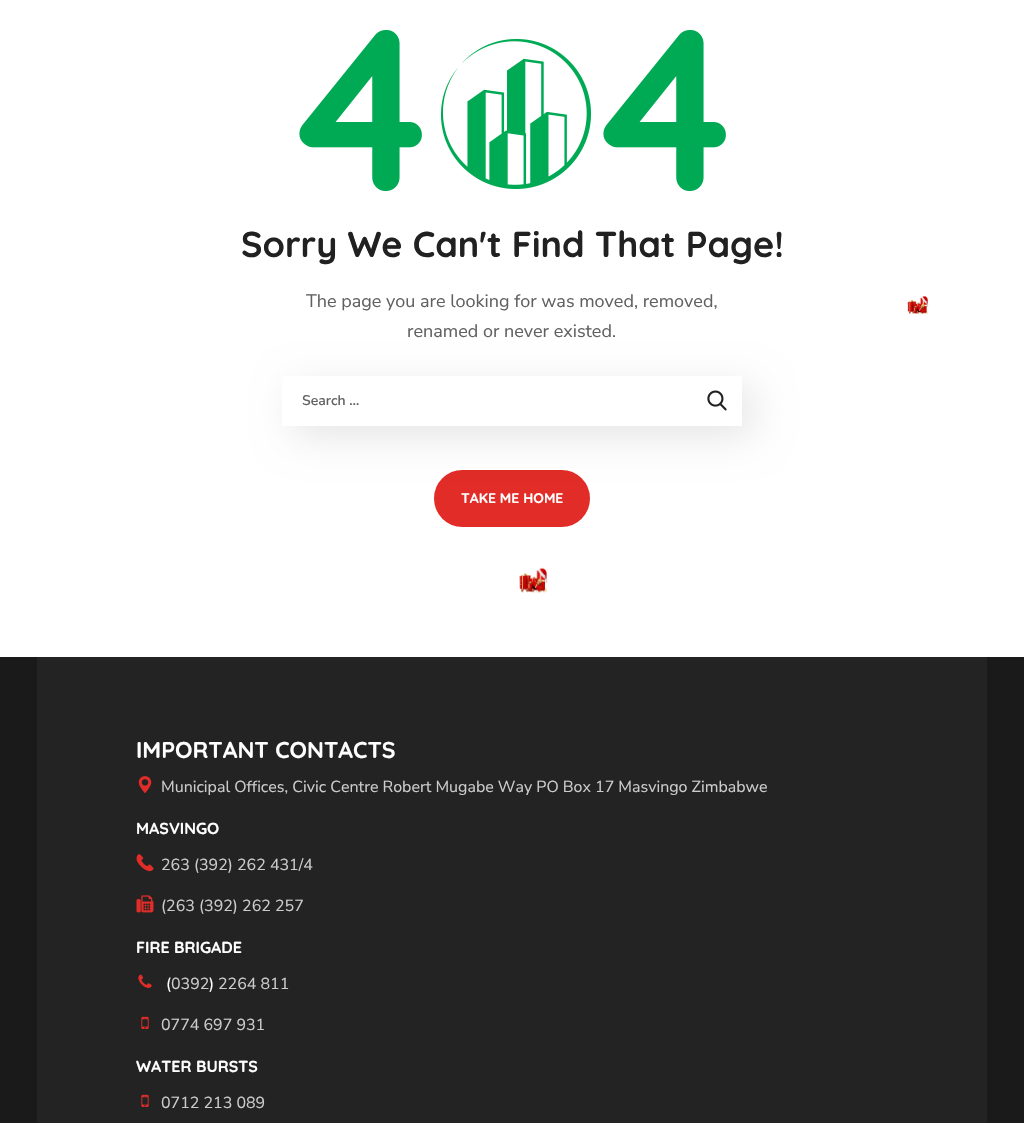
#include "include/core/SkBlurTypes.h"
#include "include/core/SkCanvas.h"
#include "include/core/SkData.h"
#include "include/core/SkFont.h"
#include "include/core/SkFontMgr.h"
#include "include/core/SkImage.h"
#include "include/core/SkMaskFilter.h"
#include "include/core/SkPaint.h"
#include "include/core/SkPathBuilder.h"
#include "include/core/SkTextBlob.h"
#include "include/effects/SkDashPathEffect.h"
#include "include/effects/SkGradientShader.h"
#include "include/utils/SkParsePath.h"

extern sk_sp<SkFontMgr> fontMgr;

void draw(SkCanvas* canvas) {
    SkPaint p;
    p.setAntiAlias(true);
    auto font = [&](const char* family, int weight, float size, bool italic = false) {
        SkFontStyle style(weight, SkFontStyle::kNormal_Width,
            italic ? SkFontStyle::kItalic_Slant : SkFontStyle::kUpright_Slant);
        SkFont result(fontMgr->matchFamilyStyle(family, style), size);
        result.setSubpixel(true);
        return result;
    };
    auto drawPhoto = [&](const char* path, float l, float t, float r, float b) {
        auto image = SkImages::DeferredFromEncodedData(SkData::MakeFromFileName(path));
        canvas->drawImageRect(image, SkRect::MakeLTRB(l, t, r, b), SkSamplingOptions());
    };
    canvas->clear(0xFFFFFFFF);
    drawPhoto("media/1.png", 299, 30, 726, 191);
    auto font1 = font("Quicksand", 700, 36);
    p.setColor(0xFF212121);
    canvas->drawString("Sorry We Can't Find That Page!", 241, 257, font1, p);
    auto font2 = font("Nunito Sans", 400, 18);
    p.setColor(0xFF616161);
    canvas->drawString("The page you are looking for was moved, removed,", 306, 307, font2, p);
    canvas->drawString("renamed or never existed.", 407, 337, font2, p);
    p.setColor(0xFFE12C27);
    canvas->drawRoundRect(SkRect::MakeLTRB(435.5f, 471.5f, 588.5f, 525.5f), 27, 27, p);
    p.setStyle(SkPaint::kStroke_Style);
    p.setStrokeWidth(3);
    canvas->drawRoundRect(SkRect::MakeLTRB(435.5f, 471.5f, 588.5f, 525.5f), 27, 27, p);
    canvas->save();
    canvas->clipPath(SkPathBuilder(SkPathFillType::kEvenOdd).moveTo(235, 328).lineTo(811, 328).lineTo(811, 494).lineTo(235, 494).close().moveTo(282, 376).lineTo(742, 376).lineTo(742, 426).lineTo(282, 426).close().detach(), true);
    p.setStyle(SkPaint::kFill_Style);
    p.setColor(0x1A000000);
    p.setMaskFilter(SkMaskFilter::MakeBlur(kNormal_SkBlurStyle, 19));
    canvas->drawRect(SkRect::MakeLTRB(293, 386, 753, 436), p);
    p.setMaskFilter(nullptr);
    canvas->restore();
    auto font3 = font("Nunito Sans", 600, 14);
    p.setColor(0xFF616161);
    canvas->drawString("Search …", 302, 405, font3, p);
    drawPhoto("media/2.png", 707, 390, 727, 411);
    auto font4 = font("Quicksand", 700, 14);
    p.setColor(0xFFFFFFFF);
    canvas->drawString("TAKE ME HOME", 461, 503, font4, p);
    drawPhoto("media/3.png", 907, 296, 929, 314);
    drawPhoto("media/4.png", 519, 567, 548, 593);
    p.setColor(0xFF1A1A1A);
    canvas->drawRect(SkRect::MakeLTRB(0, 657, 1024, 1123), p);
    p.setColor(0xFF232323);
    canvas->drawRect(SkRect::MakeLTRB(37, 657, 987, 1123), p);
    auto font5 = font("Quicksand", 700, 23);
    p.setColor(0xFFFFFFFF);
    canvas->drawString("IMPORTANT CONTACTS", 136, 758, font5, p);
    drawPhoto("media/5.png", 138, 776, 152, 793);
    auto font6 = font("Nunito Sans", 400, 16);
    p.setColor(0xFFCCCCCC);
    canvas->drawString("Municipal Offices, Civic Centre Robert Mugabe Way PO Box 17 Masvingo Zimbabwe", 161, 792, font6, p);
    auto font7 = font("Quicksand", 700, 16);
    p.setColor(0xFFFFFFFF);
    canvas->drawString("MASVINGO", 136, 834, font7, p);
    drawPhoto("media/6.png", 136, 854, 154, 872);
    p.setColor(0xFFCCCCCC);
    canvas->drawString("263 (392) 262 431/4", 161, 870, font6, p);
    drawPhoto("media/7.png", 136, 895, 154, 913);
    canvas->drawString("(263 (392) 262 257", 161, 911, font6, p);
    p.setColor(0xFFFFFFFF);
    canvas->drawString("FIRE BRIGADE", 136, 953, font7, p);
    drawPhoto("media/8.png", 138, 974, 152, 988);
    canvas->drawString("(", 166, 989, font6, p);
    p.setColor(0xFFCCCCCC);
    canvas->drawString("0392", 171, 989, font6, p);
    p.setColor(0xFFFFFFFF);
    canvas->drawString(")", 209, 989, font6, p);
    p.setColor(0xFFCCCCCC);
    canvas->drawString("2264 811", 218, 989, font6, p);
    drawPhoto("media/9.png", 141, 1016, 149, 1029);
    canvas->drawString("0774 697 931", 161, 1030, font6, p);
    p.setColor(0xFFFFFFFF);
    canvas->drawString("WATER BURSTS", 136, 1072, font7, p);
    drawPhoto("media/9.png", 141, 1094, 149, 1107);
    p.setColor(0xFFCCCCCC);
    canvas->drawString("0712 213 089", 161, 1108, font6, p);
}
